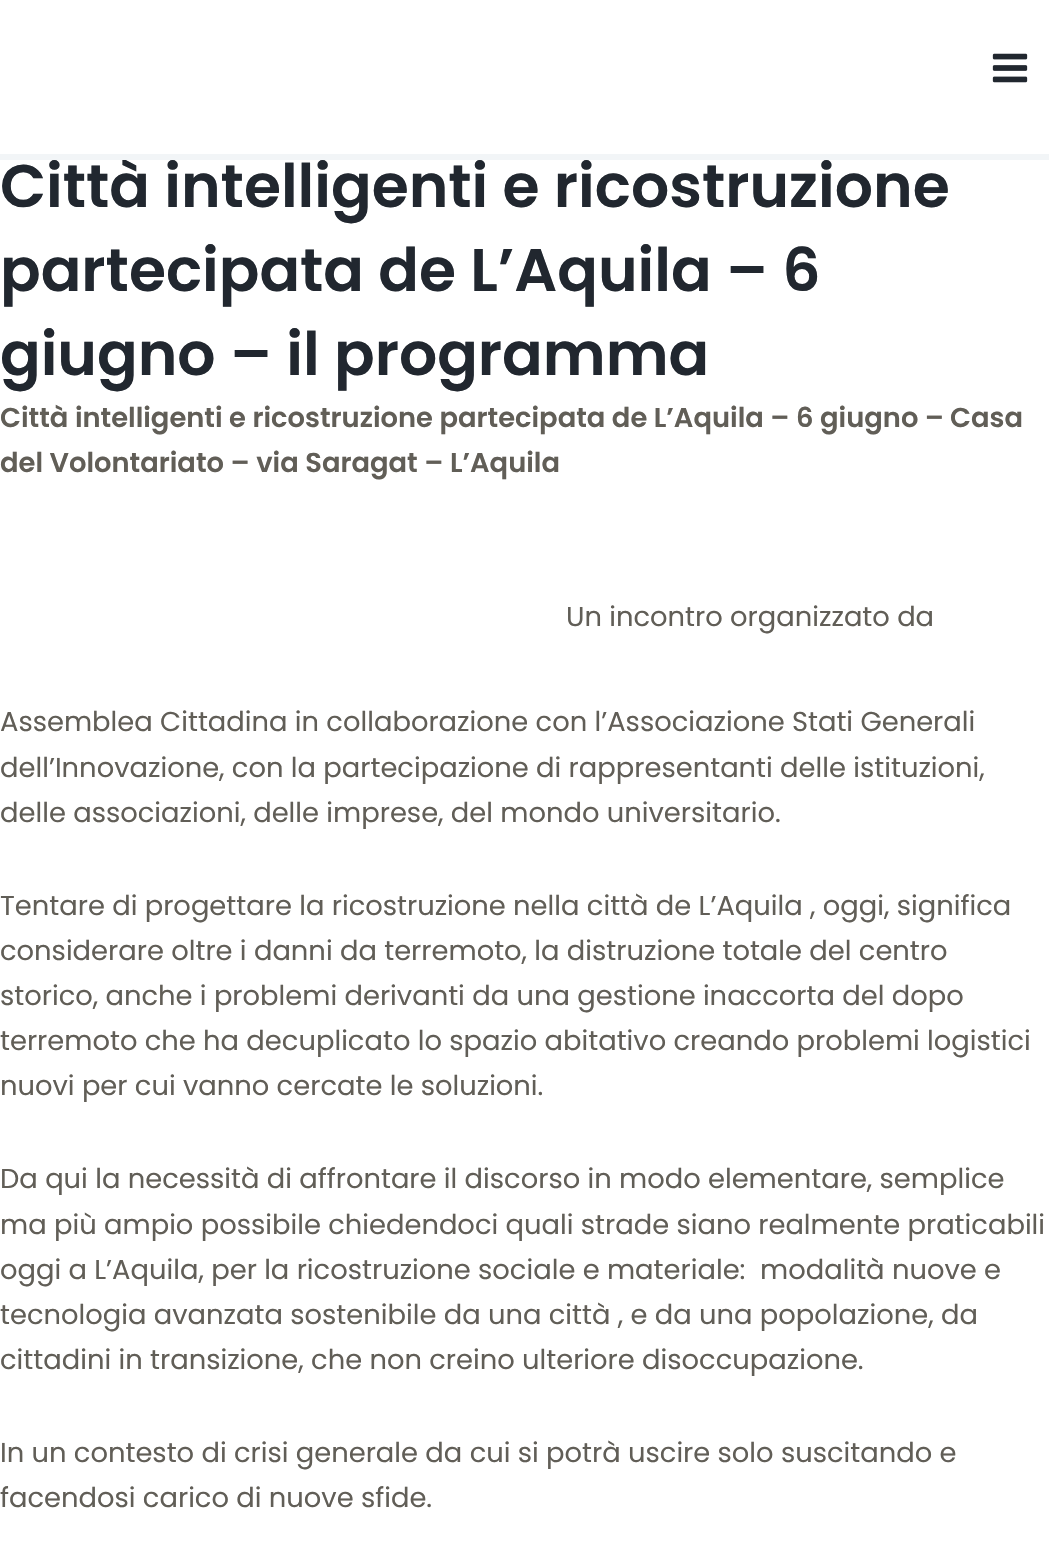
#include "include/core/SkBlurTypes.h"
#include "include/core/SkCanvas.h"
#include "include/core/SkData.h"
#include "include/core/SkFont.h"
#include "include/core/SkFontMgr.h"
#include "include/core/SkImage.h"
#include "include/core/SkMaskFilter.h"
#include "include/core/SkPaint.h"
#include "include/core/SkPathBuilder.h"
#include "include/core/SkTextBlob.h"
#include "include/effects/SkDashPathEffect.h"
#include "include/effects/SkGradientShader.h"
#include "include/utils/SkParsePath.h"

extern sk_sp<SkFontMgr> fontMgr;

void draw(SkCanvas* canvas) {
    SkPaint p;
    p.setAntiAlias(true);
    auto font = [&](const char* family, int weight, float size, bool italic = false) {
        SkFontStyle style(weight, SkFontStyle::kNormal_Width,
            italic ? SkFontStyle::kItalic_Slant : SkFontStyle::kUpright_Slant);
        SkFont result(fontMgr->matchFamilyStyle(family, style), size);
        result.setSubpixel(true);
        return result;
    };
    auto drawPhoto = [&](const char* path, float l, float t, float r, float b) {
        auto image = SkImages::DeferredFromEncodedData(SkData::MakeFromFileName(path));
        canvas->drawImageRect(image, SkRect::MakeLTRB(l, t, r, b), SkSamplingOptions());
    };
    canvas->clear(0xFFFFFFFF);
    auto font1 = font("Poppins", 600, 60);
    p.setColor(0xFF21272F);
    canvas->drawString("Città intelligenti e ricostruzione", 0, 207, font1, p);
    p.setColor(0xFFF2F5F7);
    canvas->drawRect(SkRect::MakeLTRB(0, 154, 1049, 160), p);
    drawPhoto("media/1.png", 992, 53, 1028, 83);
    p.setColor(0xFF21272F);
    canvas->drawString("partecipata de L’Aquila – 6", 0, 291, font1, p);
    canvas->drawString("giugno – il programma", 0, 375, font1, p);
    auto font2 = font("Poppins", 600, 27.35f);
    p.setColor(0xFF615E57);
    {
        const struct { const char* s; float x, y; } items[] = {
            {"Città intelligenti e ricostruzione partecipata de L’Aquila – 6 giugno –", 0, 427},
            {"Casa", 950, 427},
            {"del Volontariato – via Saragat – L’Aquila", 0, 472},
        };
        for (auto [s, x, y] : items) {
            canvas->drawString(s, x, y, font2, p);
        }
    }
    auto font3 = font("Poppins", 400, 27.35f);
    {
        const struct { const char* s; float x, y; } items[] = {
            {"Un incontro organizzato da", 566, 626},
            {"Assemblea Cittadina in collaborazione con l’Associazione Stati Generali", 0, 731},
            {"dell’Innovazione, con la partecipazione di rappresentanti delle istituzioni,", 0, 777},
            {"delle associazioni, delle imprese, del mondo universitario.", 0, 822},
            {"Tentare di progettare la ricostruzione nella città de L’Aquila , oggi, significa", 0, 915},
            {"considerare oltre i danni da terremoto, la distruzione totale del centro", 0, 960},
            {"storico, anche i problemi derivanti da una gestione inaccorta del dopo", 0, 1005},
            {"terremoto che ha decuplicato lo spazio abitativo creando problemi logistici", 0, 1050},
            {"nuovi per cui vanno cercate le soluzioni.", 0, 1095},
            {"Da qui la necessità di affrontare il discorso in modo elementare, semplice", 0, 1188},
            {"ma più ampio possibile chiedendoci quali strade siano realmente praticabili", 0, 1234},
            {"oggi a L’Aquila, per la ricostruzione sociale e materiale:  modalità nuove e", 0, 1279},
            {"tecnologia avanzata sostenibile da una città , e da una popolazione, da", 0, 1324},
            {"cittadini in transizione, che non creino ulteriore disoccupazione.", 0, 1369},
            {"In un contesto di crisi generale da cui si potrà uscire solo suscitando e", 0, 1462},
            {"facendosi carico di nuove sfide.", 0, 1507},
        };
        for (auto [s, x, y] : items) {
            canvas->drawString(s, x, y, font3, p);
        }
    }
}
